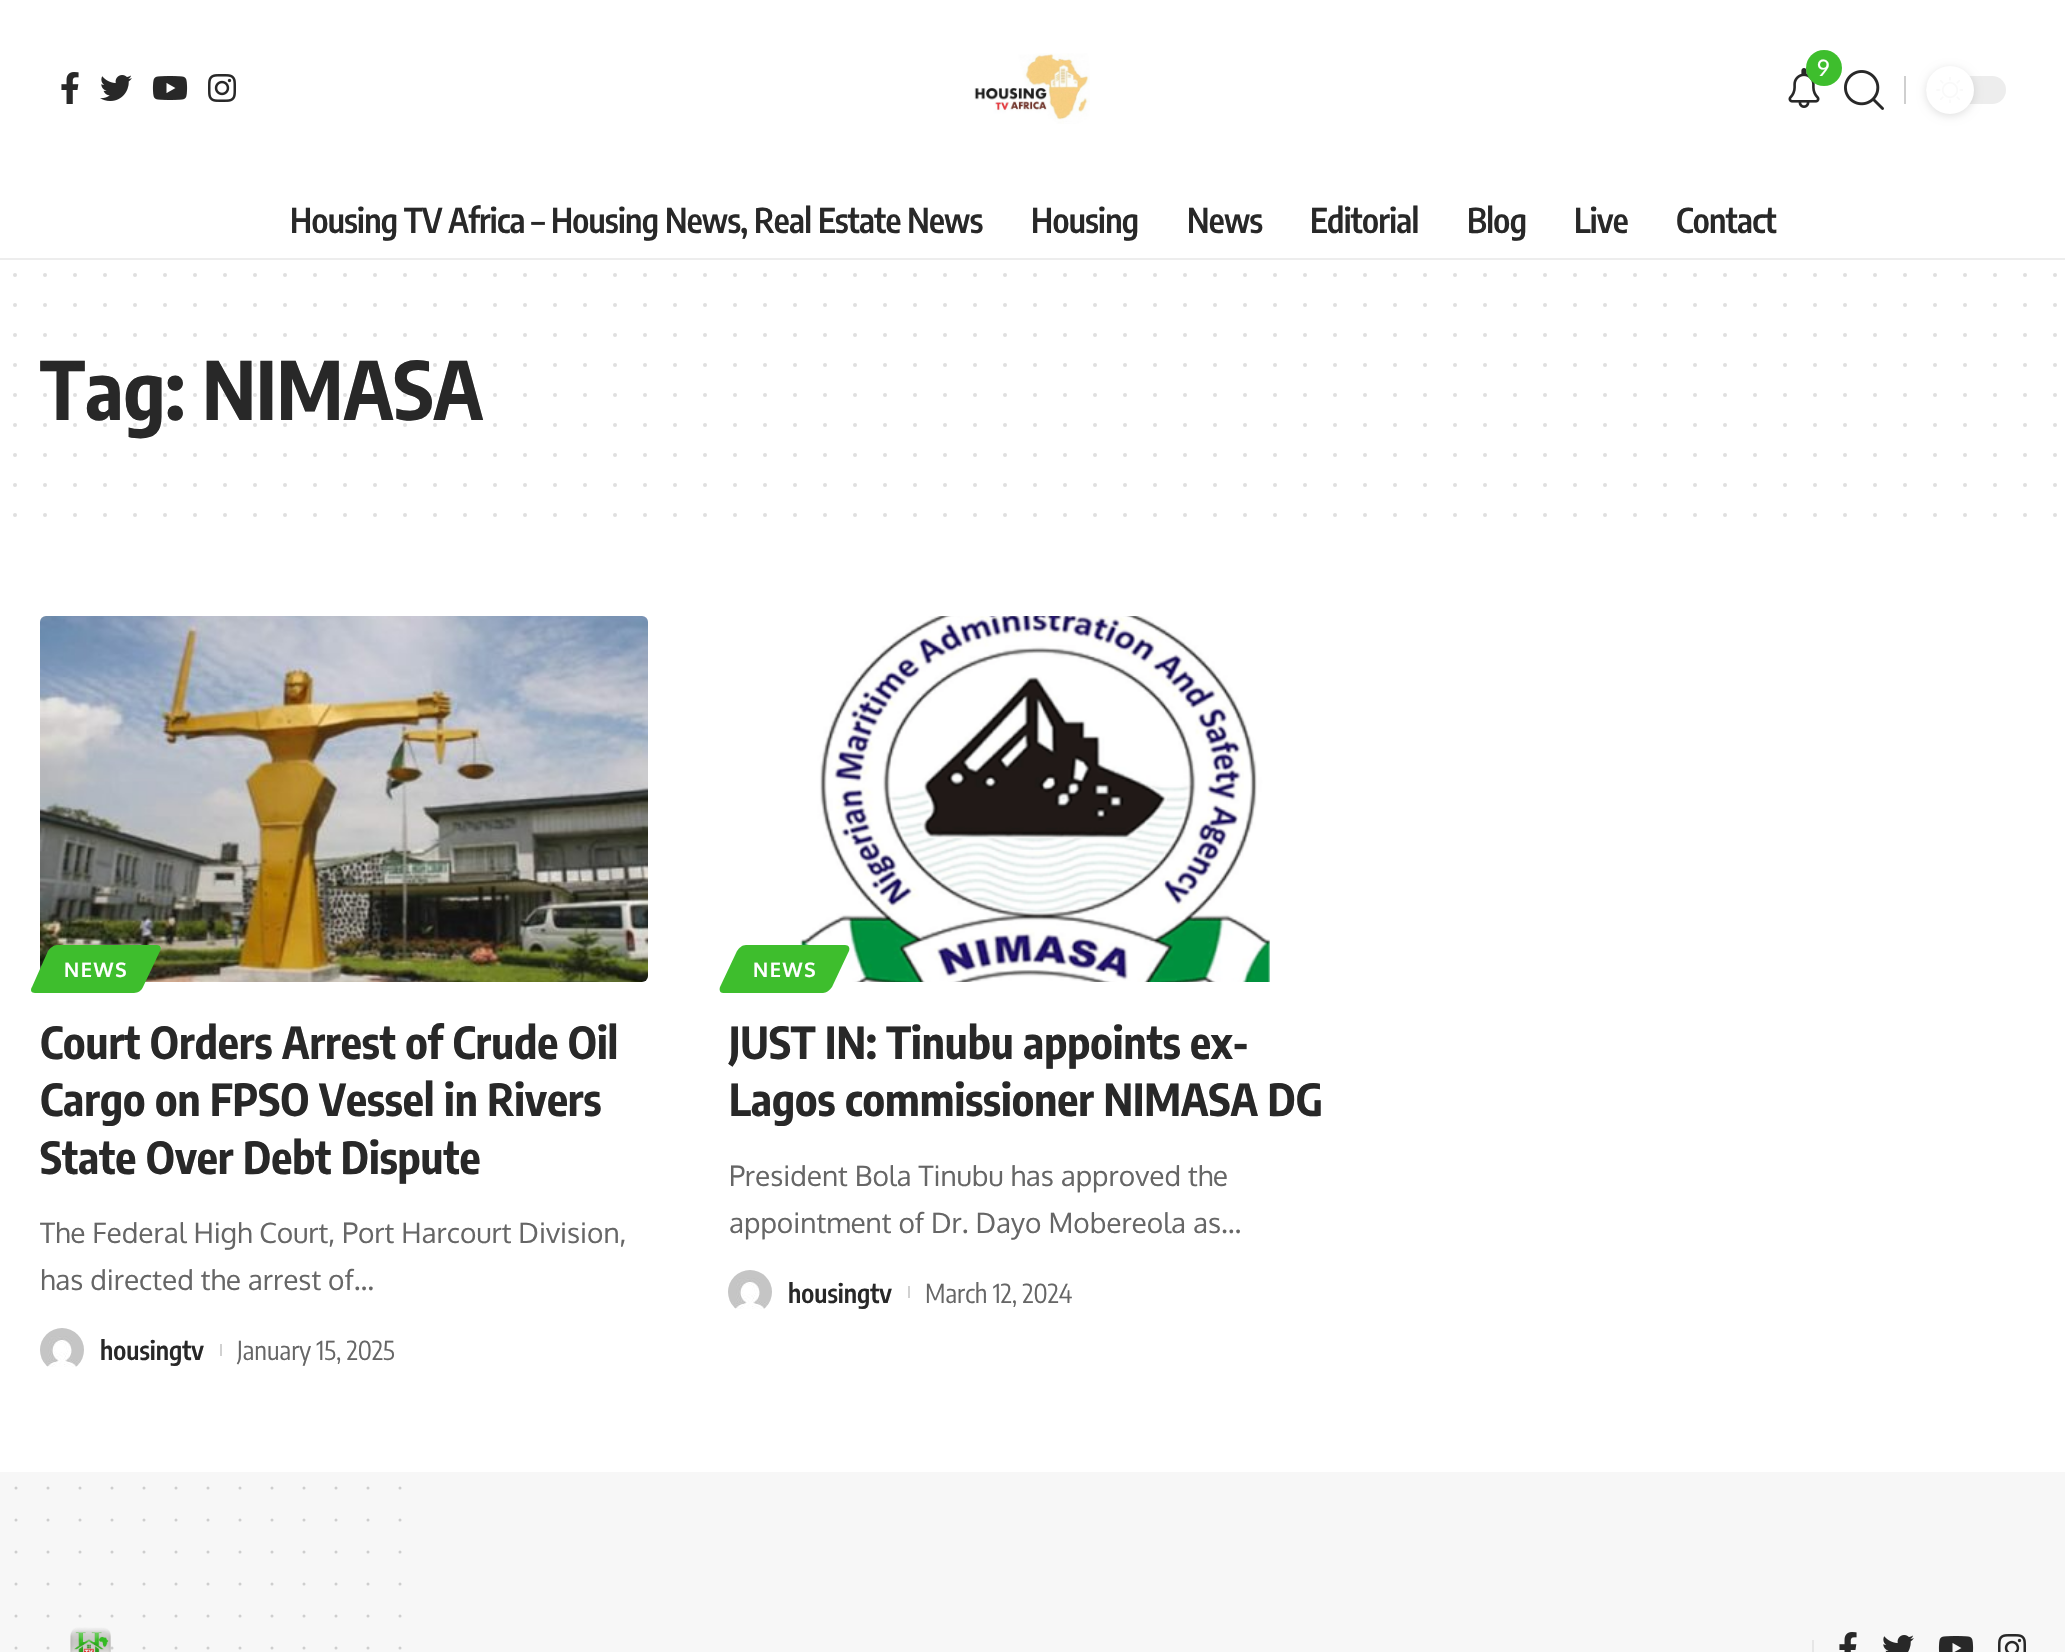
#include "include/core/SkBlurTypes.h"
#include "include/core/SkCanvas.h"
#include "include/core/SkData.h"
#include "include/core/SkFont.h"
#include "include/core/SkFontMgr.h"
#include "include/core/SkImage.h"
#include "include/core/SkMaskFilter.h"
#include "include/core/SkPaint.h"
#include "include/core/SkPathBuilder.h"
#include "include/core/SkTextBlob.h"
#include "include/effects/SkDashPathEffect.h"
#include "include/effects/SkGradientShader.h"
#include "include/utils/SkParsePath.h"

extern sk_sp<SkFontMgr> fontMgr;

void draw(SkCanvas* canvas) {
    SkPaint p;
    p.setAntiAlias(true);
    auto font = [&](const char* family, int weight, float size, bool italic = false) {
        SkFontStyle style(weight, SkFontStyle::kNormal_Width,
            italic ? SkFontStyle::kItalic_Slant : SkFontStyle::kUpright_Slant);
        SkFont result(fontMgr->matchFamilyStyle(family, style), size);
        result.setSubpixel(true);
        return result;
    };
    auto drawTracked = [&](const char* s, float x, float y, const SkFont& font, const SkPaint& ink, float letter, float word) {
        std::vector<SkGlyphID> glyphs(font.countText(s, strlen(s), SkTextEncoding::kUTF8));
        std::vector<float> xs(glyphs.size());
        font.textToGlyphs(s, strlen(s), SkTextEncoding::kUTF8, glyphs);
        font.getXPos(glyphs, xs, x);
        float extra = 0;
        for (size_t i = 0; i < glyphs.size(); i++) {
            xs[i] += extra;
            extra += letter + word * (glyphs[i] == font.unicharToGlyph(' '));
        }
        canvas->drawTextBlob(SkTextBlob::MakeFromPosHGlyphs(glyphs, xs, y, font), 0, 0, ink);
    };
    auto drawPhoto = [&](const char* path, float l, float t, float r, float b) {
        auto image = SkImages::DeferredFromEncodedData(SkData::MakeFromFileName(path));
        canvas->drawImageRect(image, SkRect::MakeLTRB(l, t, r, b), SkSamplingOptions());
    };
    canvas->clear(0xFFFFFFFF);
    drawPhoto("media/1.png", 974, 53, 1090, 124);
    drawPhoto("media/2.png", 1788, 68, 1820, 108);
    p.setColor(0xFF3EBE2D);
    canvas->drawCircle(1824, 68, 18, p);
    auto font1 = font("Oxygen", 400, 22);
    p.setColor(0xFFFFFFFF);
    canvas->drawString("9", 1817, 76, font1, p);
    p.setColor(0xFFCFCFCF);
    canvas->drawRect(SkRect::MakeLTRB(1904, 76, 1906, 104), p);
    p.setColor(0xFFEDEDED);
    canvas->drawRoundRect(SkRect::MakeLTRB(1926, 76, 2006, 104), 14, 14, p);
    p.setColor(0x1F000000);
    p.setMaskFilter(SkMaskFilter::MakeBlur(kNormal_SkBlurStyle, 4));
    canvas->drawRoundRect(SkRect::MakeLTRB(1926, 68, 1974, 116), 24, 24, p);
    p.setMaskFilter(nullptr);
    p.setColor(0xFFFFFFFF);
    canvas->drawCircle(1950, 90, 24, p);
    drawPhoto("media/3.png", 1936, 77, 1963, 103);
    drawPhoto("media/4.png", 1844, 70, 1884, 110);
    drawPhoto("media/5.png", 61, 72, 79, 104);
    drawPhoto("media/6.png", 100, 75, 132, 101);
    drawPhoto("media/7.png", 152, 76, 188, 100);
    drawPhoto("media/8.png", 208, 74, 236, 102);
    auto font2 = font("Encode Sans Condensed", 600, 34);
    p.setColor(0xFF282828);
    {
        const struct { const char* s; float x, y; } items[] = {
            {"Housing TV Africa – Housing News, Real Estate News", 290, 233},
            {"Housing", 1031, 233},
            {"News", 1187, 233},
            {"Editorial", 1310, 233},
            {"Blog", 1467, 233},
            {"Live", 1574, 233},
            {"Contact", 1676, 233},
        };
        for (auto [s, x, y] : items) {
            drawTracked(s, x, y, font2, p, -0.68f, 0);
        }
    }
    p.setColor(0xFFEDEDED);
    canvas->drawRect(SkRect::MakeLTRB(0, 258, 2065, 260), p);
    p.setStyle(SkPaint::kStroke_Style);
    p.setStrokeWidth(4);
    p.setStrokeCap(SkPaint::kRound_Cap);
    p.setColor(0xFFDFDFDF);
    p.setPathEffect(SkDashPathEffect::Make({{0, 30}}, 0));
    canvas->drawPath(SkPathBuilder().moveTo(15, 275).lineTo(2055.4f, 275).detach(), p);
    p.setPathEffect(nullptr);
    p.setPathEffect(SkDashPathEffect::Make({{0, 30}}, 0));
    canvas->drawPath(SkPathBuilder().moveTo(15, 305).lineTo(2055.4f, 305).detach(), p);
    p.setPathEffect(nullptr);
    p.setPathEffect(SkDashPathEffect::Make({{0, 30}}, 0));
    canvas->drawPath(SkPathBuilder().moveTo(15, 335).lineTo(2055.4f, 335).detach(), p);
    p.setPathEffect(nullptr);
    auto font3 = font("Encode Sans Condensed", 700, 80);
    p.setStyle(SkPaint::kFill_Style);
    p.setColor(0xFF282828);
    canvas->drawString("Tag: NIMASA", 40, 420, font3, p);
    p.setStyle(SkPaint::kStroke_Style);
    p.setColor(0x26282828);
    p.setPathEffect(SkDashPathEffect::Make({{0, 30}}, 0));
    canvas->drawPath(SkPathBuilder().moveTo(15, 365).lineTo(2055.4f, 365).detach(), p);
    p.setPathEffect(nullptr);
    p.setPathEffect(SkDashPathEffect::Make({{0, 30}}, 0));
    canvas->drawPath(SkPathBuilder().moveTo(15, 395).lineTo(2055.4f, 395).detach(), p);
    p.setPathEffect(nullptr);
    p.setColor(0xFFDFDFDF);
    p.setPathEffect(SkDashPathEffect::Make({{0, 30}}, 0));
    canvas->drawPath(SkPathBuilder().moveTo(15, 425).lineTo(2055.4f, 425).detach(), p);
    p.setPathEffect(nullptr);
    p.setPathEffect(SkDashPathEffect::Make({{0, 30}}, 0));
    canvas->drawPath(SkPathBuilder().moveTo(15, 455).lineTo(2055.4f, 455).detach(), p);
    p.setPathEffect(nullptr);
    p.setPathEffect(SkDashPathEffect::Make({{0, 30}}, 0));
    canvas->drawPath(SkPathBuilder().moveTo(15, 485).lineTo(2055.4f, 485).detach(), p);
    p.setPathEffect(nullptr);
    p.setPathEffect(SkDashPathEffect::Make({{0, 30}}, 0));
    canvas->drawPath(SkPathBuilder().moveTo(15, 515).lineTo(2055.4f, 515).detach(), p);
    p.setPathEffect(nullptr);
    drawPhoto("media/9.png", 40, 616, 648, 982);
    p.setStyle(SkPaint::kFill_Style);
    p.setColor(0xFF3EBE2D);
    canvas->drawPath(SkPathBuilder().moveTo(57, 945).lineTo(157, 945).cubicTo(160, 945, 162, 948, 160, 951).lineTo(143, 987).cubicTo(142, 990, 138, 993, 134, 993).lineTo(35, 993).cubicTo(31, 993, 30, 990, 32, 987).lineTo(48, 951).cubicTo(50, 948, 54, 945, 57, 945).close().detach(), p);
    auto font4 = font("Oxygen", 700, 20);
    p.setColor(0xFFFFFFFF);
    drawTracked("NEWS", 64, 977, font4, p, 1.5f, 0);
    auto font5 = font("Encode Sans Condensed", 700, 44);
    p.setColor(0xFF282828);
    {
        const struct { const char* s; float x, y; } items[] = {
            {"Court Orders Arrest of Crude Oil", 40, 1059},
            {"Cargo on FPSO Vessel in Rivers", 40, 1116},
            {"State Over Debt Dispute", 40, 1174},
        };
        for (auto [s, x, y] : items) {
            canvas->drawString(s, x, y, font5, p);
        }
    }
    auto font6 = font("Oxygen", 400, 28);
    p.setColor(0xFF666666);
    canvas->drawString("The Federal High Court, Port Harcourt Division,", 40, 1243, font6, p);
    canvas->drawString("has directed the arrest of…", 40, 1290, font6, p);
    drawPhoto("media/10.png", 40, 1328, 84, 1367);
    auto font7 = font("Encode Sans Condensed", 600, 26);
    p.setColor(0xFF282828);
    canvas->drawString("housingtv", 100, 1360, font7, p);
    p.setColor(0xFFD1D1D1);
    canvas->drawRect(SkRect::MakeLTRB(220, 1344, 222, 1356), p);
    auto font8 = font("Encode Sans Condensed", 400, 26);
    p.setColor(0xFF666666);
    canvas->drawString("January 15, 2025", 237, 1360, font8, p);
    drawPhoto("media/11.png", 800, 616, 1270, 982);
    p.setColor(0xFF3EBE2D);
    canvas->drawPath(SkPathBuilder().moveTo(746, 945).lineTo(845, 945).cubicTo(849, 945, 850, 948, 849, 951).lineTo(832, 987).cubicTo(830, 990, 826, 993, 823, 993).lineTo(723, 993).cubicTo(720, 993, 719, 990, 720, 987).lineTo(737, 951).cubicTo(739, 948, 742, 945, 746, 945).close().detach(), p);
    p.setColor(0xFFFFFFFF);
    drawTracked("NEWS", 753, 977, font4, p, 1.5f, 0);
    p.setColor(0xFF282828);
    canvas->drawString("JUST IN: Tinubu appoints ex-", 729, 1059, font5, p);
    canvas->drawString("Lagos commissioner NIMASA DG", 729, 1116, font5, p);
    p.setColor(0xFF666666);
    canvas->drawString("President Bola Tinubu has approved the", 729, 1186, font6, p);
    canvas->drawString("appointment of Dr. Dayo Mobereola as…", 729, 1233, font6, p);
    drawPhoto("media/12.png", 728, 1270, 772, 1309);
    p.setColor(0xFF282828);
    canvas->drawString("housingtv", 788, 1303, font7, p);
    p.setColor(0xFFD1D1D1);
    canvas->drawRect(SkRect::MakeLTRB(908, 1286, 910, 1298), p);
    p.setColor(0xFF666666);
    canvas->drawString("March 12, 2024", 925, 1303, font8, p);
    p.setColor(0xFFF7F7F7);
    canvas->drawRect(SkRect::MakeLTRB(0, 1472, 2065, 1652), p);
    p.setStyle(SkPaint::kStroke_Style);
    p.setStrokeWidth(3);
    p.setColor(0xFFCECECE);
    p.setPathEffect(SkDashPathEffect::Make({{0, 32}}, 0));
    canvas->drawPath(SkPathBuilder().moveTo(16, 1648).lineTo(400.4f, 1648).detach(), p);
    p.setPathEffect(nullptr);
    drawPhoto("media/13.png", 70, 1627, 111, 1652);
    p.setStyle(SkPaint::kFill_Style);
    p.setColor(0xFFE6E6E6);
    canvas->drawRect(SkRect::MakeLTRB(1812, 1640, 1814, 1652), p);
    drawPhoto("media/14.png", 1839, 1632, 1857, 1652);
    drawPhoto("media/15.png", 1883, 1635, 1914, 1652);
    drawPhoto("media/16.png", 1938, 1636, 1974, 1652);
    drawPhoto("media/17.png", 1998, 1634, 2026, 1652);
    p.setStyle(SkPaint::kStroke_Style);
    p.setColor(0xFFCECECE);
    p.setPathEffect(SkDashPathEffect::Make({{0, 32}}, 0));
    canvas->drawPath(SkPathBuilder().moveTo(16, 1488).lineTo(400.4f, 1488).detach(), p);
    p.setPathEffect(nullptr);
    p.setPathEffect(SkDashPathEffect::Make({{0, 32}}, 0));
    canvas->drawPath(SkPathBuilder().moveTo(16, 1520).lineTo(400.4f, 1520).detach(), p);
    p.setPathEffect(nullptr);
    p.setPathEffect(SkDashPathEffect::Make({{0, 32}}, 0));
    canvas->drawPath(SkPathBuilder().moveTo(16, 1552).lineTo(400.4f, 1552).detach(), p);
    p.setPathEffect(nullptr);
    p.setPathEffect(SkDashPathEffect::Make({{0, 32}}, 0));
    canvas->drawPath(SkPathBuilder().moveTo(16, 1584).lineTo(400.4f, 1584).detach(), p);
    p.setPathEffect(nullptr);
    p.setPathEffect(SkDashPathEffect::Make({{0, 32}}, 0));
    canvas->drawPath(SkPathBuilder().moveTo(16, 1616).lineTo(400.4f, 1616).detach(), p);
    p.setPathEffect(nullptr);
}
